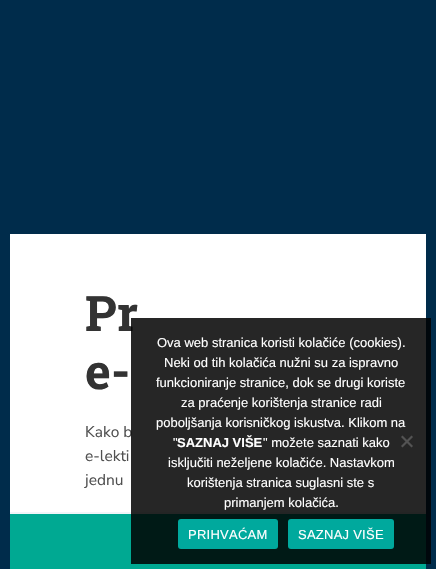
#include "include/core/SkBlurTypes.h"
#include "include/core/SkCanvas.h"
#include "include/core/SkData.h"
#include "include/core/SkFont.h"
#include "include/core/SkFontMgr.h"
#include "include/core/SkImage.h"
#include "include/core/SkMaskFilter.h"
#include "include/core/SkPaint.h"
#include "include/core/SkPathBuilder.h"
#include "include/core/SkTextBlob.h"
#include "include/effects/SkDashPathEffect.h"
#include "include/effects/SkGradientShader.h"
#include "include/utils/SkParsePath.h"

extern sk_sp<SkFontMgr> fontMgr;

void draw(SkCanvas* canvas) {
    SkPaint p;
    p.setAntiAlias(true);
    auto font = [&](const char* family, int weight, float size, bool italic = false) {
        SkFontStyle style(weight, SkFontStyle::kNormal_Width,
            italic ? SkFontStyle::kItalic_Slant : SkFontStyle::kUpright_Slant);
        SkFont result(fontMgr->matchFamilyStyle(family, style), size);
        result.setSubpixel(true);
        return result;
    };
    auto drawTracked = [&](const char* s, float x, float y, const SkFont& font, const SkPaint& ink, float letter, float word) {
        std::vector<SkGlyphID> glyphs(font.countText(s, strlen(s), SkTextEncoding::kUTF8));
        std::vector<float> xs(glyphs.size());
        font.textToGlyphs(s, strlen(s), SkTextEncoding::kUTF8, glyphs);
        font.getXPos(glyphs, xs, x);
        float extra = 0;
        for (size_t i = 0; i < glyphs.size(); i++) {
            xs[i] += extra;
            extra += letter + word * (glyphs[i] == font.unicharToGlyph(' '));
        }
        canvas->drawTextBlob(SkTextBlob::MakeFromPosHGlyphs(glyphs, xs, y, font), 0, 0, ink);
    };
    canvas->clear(0xFF002C4B);
    p.setColor(0xFFFFFFFF);
    canvas->drawRect(SkRect::MakeLTRB(10, 234, 426, 512), p);
    auto font1 = font("Roboto Slab", 700, 49);
    p.setColor(0xFF333333);
    canvas->drawString("Pr", 85, 331, font1, p);
    canvas->drawString("e-", 85, 389, font1, p);
    auto font2 = font("Nunito Sans", 400, 15.5f);
    p.setColor(0xFF505050);
    {
        const struct { const char* s; float x, y; } items[] = {
            {"Kako b", 85, 437},
            {"e-lekti", 85, 461},
            {"jednu", 85, 485},
        };
        for (auto [s, x, y] : items) {
            canvas->drawString(s, x, y, font2, p);
        }
    }
    {
        const struct { float l, t, r, b; SkColor color; } items[] = {
            {10, 512, 426, 514, 0xFFF0F5F8},
            {10, 514, 426, 569, 0xFF00A992},
            {131, 318, 431, 564, 0xD9000000},
        };
        for (auto [l, t, r, b, color] : items) {
            p.setColor(color);
            canvas->drawRect(SkRect::MakeLTRB(l, t, r, b), p);
        }
    }
    auto font3 = font("Liberation Sans", 400, 13);
    p.setColor(0xFFFFFFFF);
    {
        const struct { const char* s; float x, y; } items[] = {
            {"Ova web stranica koristi kolačiće (cookies).", 157, 347},
            {"Neki od tih kolačića nužni su za ispravno", 164, 367},
            {"funkcioniranje stranice, dok se drugi koriste", 156, 387},
            {"za praćenje korištenja stranice radi", 181, 407},
            {"poboljšanja korisničkog iskustva. Klikom na", 156, 427},
            {"\"", 173, 447},
        };
        for (auto [s, x, y] : items) {
            canvas->drawString(s, x, y, font3, p);
        }
    }
    auto font4 = font("Liberation Sans", 700, 13);
    canvas->drawString("SAZNAJ VIŠE", 177, 447, font4, p);
    {
        const struct { const char* s; float x, y; } items[] = {
            {"\" možete saznati kako", 263, 447},
            {"isključiti neželjene kolačiće. Nastavkom", 168, 467},
            {"korištenja stranica suglasni ste s", 187, 487},
            {"primanjem kolačića.", 224, 507},
        };
        for (auto [s, x, y] : items) {
            canvas->drawString(s, x, y, font3, p);
        }
    }
    p.setColor(0xFF535353);
    canvas->drawPath(SkPathBuilder().moveTo(411.5f, 435.5f).lineTo(413, 437).lineTo(402.5f, 447.5f).lineTo(401, 446).close().detach(), p);
    canvas->drawPath(SkPathBuilder().moveTo(401, 437).lineTo(402.5f, 435.5f).lineTo(413, 446).lineTo(411.5f, 447.5f).close().detach(), p);
    p.setColor(0xFF00A99D);
    canvas->drawRoundRect(SkRect::MakeLTRB(178, 519, 278, 549), 3, 3, p);
    p.setColor(0xFFFFFFFF);
    drawTracked("PRIHVAĆAM", 188, 539, font3, p, 0.25f, 0);
    p.setColor(0xFF00A99D);
    canvas->drawRoundRect(SkRect::MakeLTRB(288, 519, 394, 549), 3, 3, p);
    p.setColor(0xFFFFFFFF);
    drawTracked("SAZNAJ VIŠE", 298, 539, font3, p, 0.25f, 0);
}
